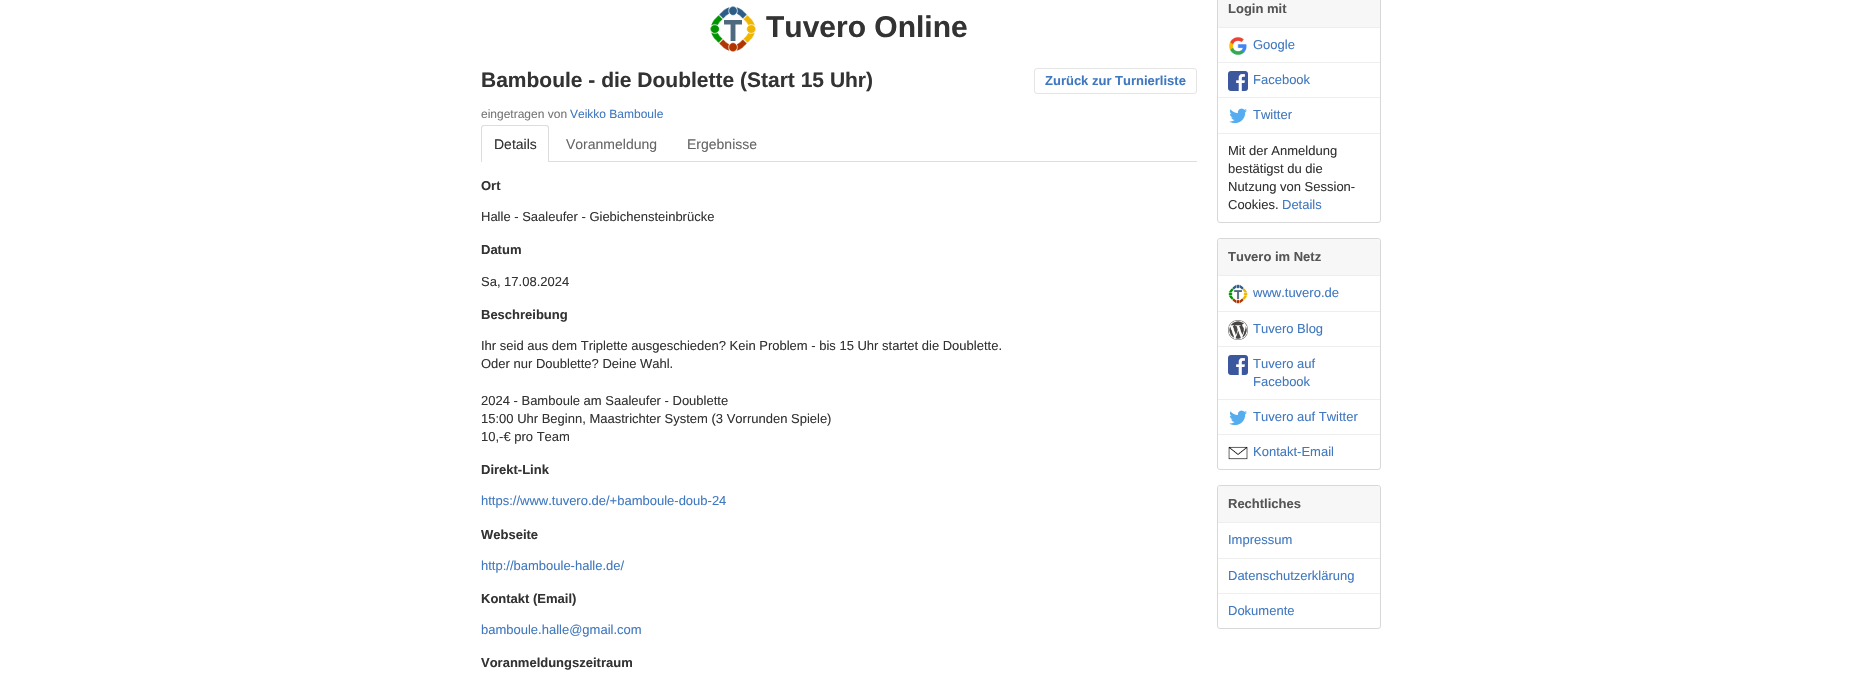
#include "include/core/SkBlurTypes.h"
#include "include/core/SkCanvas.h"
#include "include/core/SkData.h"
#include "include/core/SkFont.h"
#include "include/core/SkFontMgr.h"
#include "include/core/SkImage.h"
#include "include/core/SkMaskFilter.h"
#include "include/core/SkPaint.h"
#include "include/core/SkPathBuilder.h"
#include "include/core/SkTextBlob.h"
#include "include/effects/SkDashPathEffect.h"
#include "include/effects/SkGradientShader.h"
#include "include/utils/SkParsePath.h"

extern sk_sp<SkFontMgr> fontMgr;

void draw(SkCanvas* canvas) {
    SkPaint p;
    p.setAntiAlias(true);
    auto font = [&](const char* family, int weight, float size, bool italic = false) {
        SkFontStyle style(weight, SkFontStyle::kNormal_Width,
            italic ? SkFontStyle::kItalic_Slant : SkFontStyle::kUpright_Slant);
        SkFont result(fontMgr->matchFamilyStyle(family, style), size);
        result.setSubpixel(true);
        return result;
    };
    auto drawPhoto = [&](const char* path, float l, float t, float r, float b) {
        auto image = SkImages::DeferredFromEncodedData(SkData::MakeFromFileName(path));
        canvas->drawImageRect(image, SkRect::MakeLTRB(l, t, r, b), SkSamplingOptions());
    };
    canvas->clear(0xFFFFFFFF);
    drawPhoto("media/1.png", 710, 6, 756, 52);
    auto font1 = font("Liberation Sans", 700, 30);
    p.setColor(0xFF333333);
    canvas->drawString("Tuvero Online", 766, 37, font1, p);
    auto font2 = font("Liberation Sans", 700, 21);
    canvas->drawString("Bamboule - die Doublette (Start 15 Uhr)", 481, 87, font2, p);
    auto font3 = font("Liberation Sans", 400, 12);
    p.setColor(0xFF767676);
    canvas->drawString("eingetragen von", 481, 118, font3, p);
    p.setColor(0xFF4078C0);
    canvas->drawString("Veikko Bamboule", 570, 118, font3, p);
    p.setColor(0xFFDDDDDD);
    canvas->drawRect(SkRect::MakeLTRB(549, 161, 1197, 162), p);
    canvas->drawPath(SkPathBuilder(SkPathFillType::kEvenOdd).moveTo(484, 125).lineTo(546, 125).cubicTo(548, 125, 549, 126, 549, 128).lineTo(549, 162).lineTo(481, 162).lineTo(481, 128).cubicTo(481, 126, 482, 125, 484, 125).close().moveTo(484, 126).lineTo(546, 126).cubicTo(547, 126, 548, 127, 548, 128).lineTo(548, 162).lineTo(482, 162).lineTo(482, 128).cubicTo(482, 127, 483, 126, 484, 126).close().detach(), p);
    auto font4 = font("Liberation Sans", 400, 14);
    p.setColor(0xFF333333);
    canvas->drawString("Details", 494, 149, font4, p);
    p.setColor(0xFF666666);
    canvas->drawString("Voranmeldung", 566, 149, font4, p);
    canvas->drawString("Ergebnisse", 687, 149, font4, p);
    p.setStyle(SkPaint::kStroke_Style);
    p.setStrokeWidth(1);
    p.setColor(0xFFE5E5E5);
    canvas->drawRoundRect(SkRect::MakeLTRB(1034.5f, 68.5f, 1196.5f, 93.5f), 2.5f, 2.5f, p);
    auto font5 = font("Liberation Sans", 700, 13);
    p.setStyle(SkPaint::kFill_Style);
    p.setColor(0xFF4078C0);
    canvas->drawString("Zurück zur Turnierliste", 1045, 85, font5, p);
    p.setColor(0xFF333333);
    canvas->drawString("Ort", 481, 190, font5, p);
    auto font6 = font("Liberation Sans", 400, 13);
    canvas->drawString("Halle - Saaleufer - Giebichensteinbrücke", 481, 221, font6, p);
    canvas->drawString("Datum", 481, 254, font5, p);
    canvas->drawString("Sa, 17.08.2024", 481, 286, font6, p);
    canvas->drawString("Beschreibung", 481, 319, font5, p);
    {
        const struct { const char* s; float x, y; } items[] = {
            {"Ihr seid aus dem Triplette ausgeschieden? Kein Problem - bis 15 Uhr startet die Doublette.", 481, 350},
            {"Oder nur Doublette? Deine Wahl.", 481, 368},
            {"2024 - Bamboule am Saaleufer - Doublette", 481, 405},
            {"15:00 Uhr Beginn, Maastrichter System (3 Vorrunden Spiele)", 481, 423},
            {"10,-€ pro Team", 481, 441},
        };
        for (auto [s, x, y] : items) {
            canvas->drawString(s, x, y, font6, p);
        }
    }
    canvas->drawString("Direkt-Link", 481, 474, font5, p);
    p.setColor(0xFF4078C0);
    canvas->drawString("https://www.tuvero.de/+bamboule-doub-24", 481, 505, font6, p);
    p.setColor(0xFF333333);
    canvas->drawString("Webseite", 481, 539, font5, p);
    p.setColor(0xFF4078C0);
    canvas->drawString("http://bamboule-halle.de/", 481, 570, font6, p);
    p.setColor(0xFF333333);
    canvas->drawString("Kontakt (Email)", 481, 603, font5, p);
    p.setColor(0xFF4078C0);
    canvas->drawString("bamboule.halle@gmail.com", 481, 634, font6, p);
    p.setColor(0xFF333333);
    canvas->drawString("Voranmeldungszeitraum", 481, 667, font5, p);
    p.setStyle(SkPaint::kStroke_Style);
    p.setColor(0xFFD8D8D8);
    canvas->drawRoundRect(SkRect::MakeLTRB(1217.5f, -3.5f, 1380.5f, 222.5f), 2.5f, 2.5f, p);
    p.setStyle(SkPaint::kFill_Style);
    p.setColor(0xFFF7F7F7);
    canvas->drawRect(SkRect::MakeLTRB(1218, 0, 1380, 27), p);
    p.setColor(0xFFEEEEEE);
    canvas->drawRect(SkRect::MakeLTRB(1218, 27, 1380, 28), p);
    p.setColor(0xFF555555);
    canvas->drawString("Login mit", 1228, 13, font5, p);
    p.setColor(0xFFEEEEEE);
    canvas->drawRect(SkRect::MakeLTRB(1218, 62, 1380, 63), p);
    drawPhoto("media/2.png", 1228, 36, 1247, 56);
    p.setColor(0xFF4078C0);
    canvas->drawString("Google", 1253, 49, font6, p);
    p.setColor(0xFFEEEEEE);
    canvas->drawRect(SkRect::MakeLTRB(1218, 97, 1380, 98), p);
    drawPhoto("media/3.png", 1228, 71, 1248, 91);
    p.setColor(0xFF4078C0);
    canvas->drawString("Facebook", 1253, 84, font6, p);
    p.setColor(0xFFEEEEEE);
    canvas->drawRect(SkRect::MakeLTRB(1218, 133, 1380, 134), p);
    drawPhoto("media/4.png", 1229, 108, 1247, 124);
    p.setColor(0xFF4078C0);
    canvas->drawString("Twitter", 1253, 119, font6, p);
    p.setColor(0xFF333333);
    {
        const struct { const char* s; float x, y; } items[] = {
            {"Mit der Anmeldung", 1228, 155},
            {"bestätigst du die", 1228, 173},
            {"Nutzung von Session-", 1228, 191},
            {"Cookies.", 1228, 209},
        };
        for (auto [s, x, y] : items) {
            canvas->drawString(s, x, y, font6, p);
        }
    }
    p.setColor(0xFF4078C0);
    canvas->drawString("Details", 1282, 209, font6, p);
    p.setStyle(SkPaint::kStroke_Style);
    p.setColor(0xFFD8D8D8);
    canvas->drawRoundRect(SkRect::MakeLTRB(1217.5f, 238.5f, 1380.5f, 469.5f), 2.5f, 2.5f, p);
    p.setStyle(SkPaint::kFill_Style);
    p.setColor(0xFFF7F7F7);
    canvas->drawPath(SkPathBuilder().moveTo(1220, 239).lineTo(1378, 239).cubicTo(1379, 239, 1380, 240, 1380, 241).lineTo(1380, 276).lineTo(1218, 276).lineTo(1218, 241).cubicTo(1218, 240, 1219, 239, 1220, 239).close().detach(), p);
    p.setColor(0xFFEEEEEE);
    canvas->drawRect(SkRect::MakeLTRB(1218, 275, 1380, 276), p);
    p.setColor(0xFF555555);
    canvas->drawString("Tuvero im Netz", 1228, 261, font5, p);
    p.setColor(0xFFEEEEEE);
    canvas->drawRect(SkRect::MakeLTRB(1218, 311, 1380, 312), p);
    drawPhoto("media/5.png", 1228, 284, 1248, 304);
    p.setColor(0xFF4078C0);
    canvas->drawString("www.tuvero.de", 1253, 297, font6, p);
    p.setColor(0xFFEEEEEE);
    canvas->drawRect(SkRect::MakeLTRB(1218, 346, 1380, 347), p);
    drawPhoto("media/6.png", 1228, 320, 1248, 340);
    p.setColor(0xFF4078C0);
    canvas->drawString("Tuvero Blog", 1253, 333, font6, p);
    p.setColor(0xFFEEEEEE);
    canvas->drawRect(SkRect::MakeLTRB(1218, 399, 1380, 400), p);
    drawPhoto("media/3.png", 1228, 355, 1248, 375);
    p.setColor(0xFF4078C0);
    canvas->drawString("Tuvero auf", 1253, 368, font6, p);
    canvas->drawString("Facebook", 1253, 386, font6, p);
    p.setColor(0xFFEEEEEE);
    canvas->drawRect(SkRect::MakeLTRB(1218, 434, 1380, 435), p);
    drawPhoto("media/4.png", 1229, 410, 1247, 426);
    p.setColor(0xFF4078C0);
    canvas->drawString("Tuvero auf Twitter", 1253, 421, font6, p);
    drawPhoto("media/7.png", 1228, 446, 1248, 460);
    canvas->drawString("Kontakt-Email", 1253, 456, font6, p);
    p.setStyle(SkPaint::kStroke_Style);
    p.setColor(0xFFD8D8D8);
    canvas->drawRoundRect(SkRect::MakeLTRB(1217.5f, 485.5f, 1380.5f, 628.5f), 2.5f, 2.5f, p);
    p.setStyle(SkPaint::kFill_Style);
    p.setColor(0xFFF7F7F7);
    canvas->drawPath(SkPathBuilder().moveTo(1220, 486).lineTo(1378, 486).cubicTo(1379, 486, 1380, 487, 1380, 488).lineTo(1380, 523).lineTo(1218, 523).lineTo(1218, 488).cubicTo(1218, 487, 1219, 486, 1220, 486).close().detach(), p);
    p.setColor(0xFFEEEEEE);
    canvas->drawRect(SkRect::MakeLTRB(1218, 522, 1380, 523), p);
    p.setColor(0xFF555555);
    canvas->drawString("Rechtliches", 1228, 508, font5, p);
    p.setColor(0xFFEEEEEE);
    canvas->drawRect(SkRect::MakeLTRB(1218, 558, 1380, 559), p);
    p.setColor(0xFF4078C0);
    canvas->drawString("Impressum", 1228, 544, font6, p);
    p.setColor(0xFFEEEEEE);
    canvas->drawRect(SkRect::MakeLTRB(1218, 593, 1380, 594), p);
    p.setColor(0xFF4078C0);
    canvas->drawString("Datenschutzerklärung", 1228, 580, font6, p);
    canvas->drawString("Dokumente", 1228, 615, font6, p);
}
